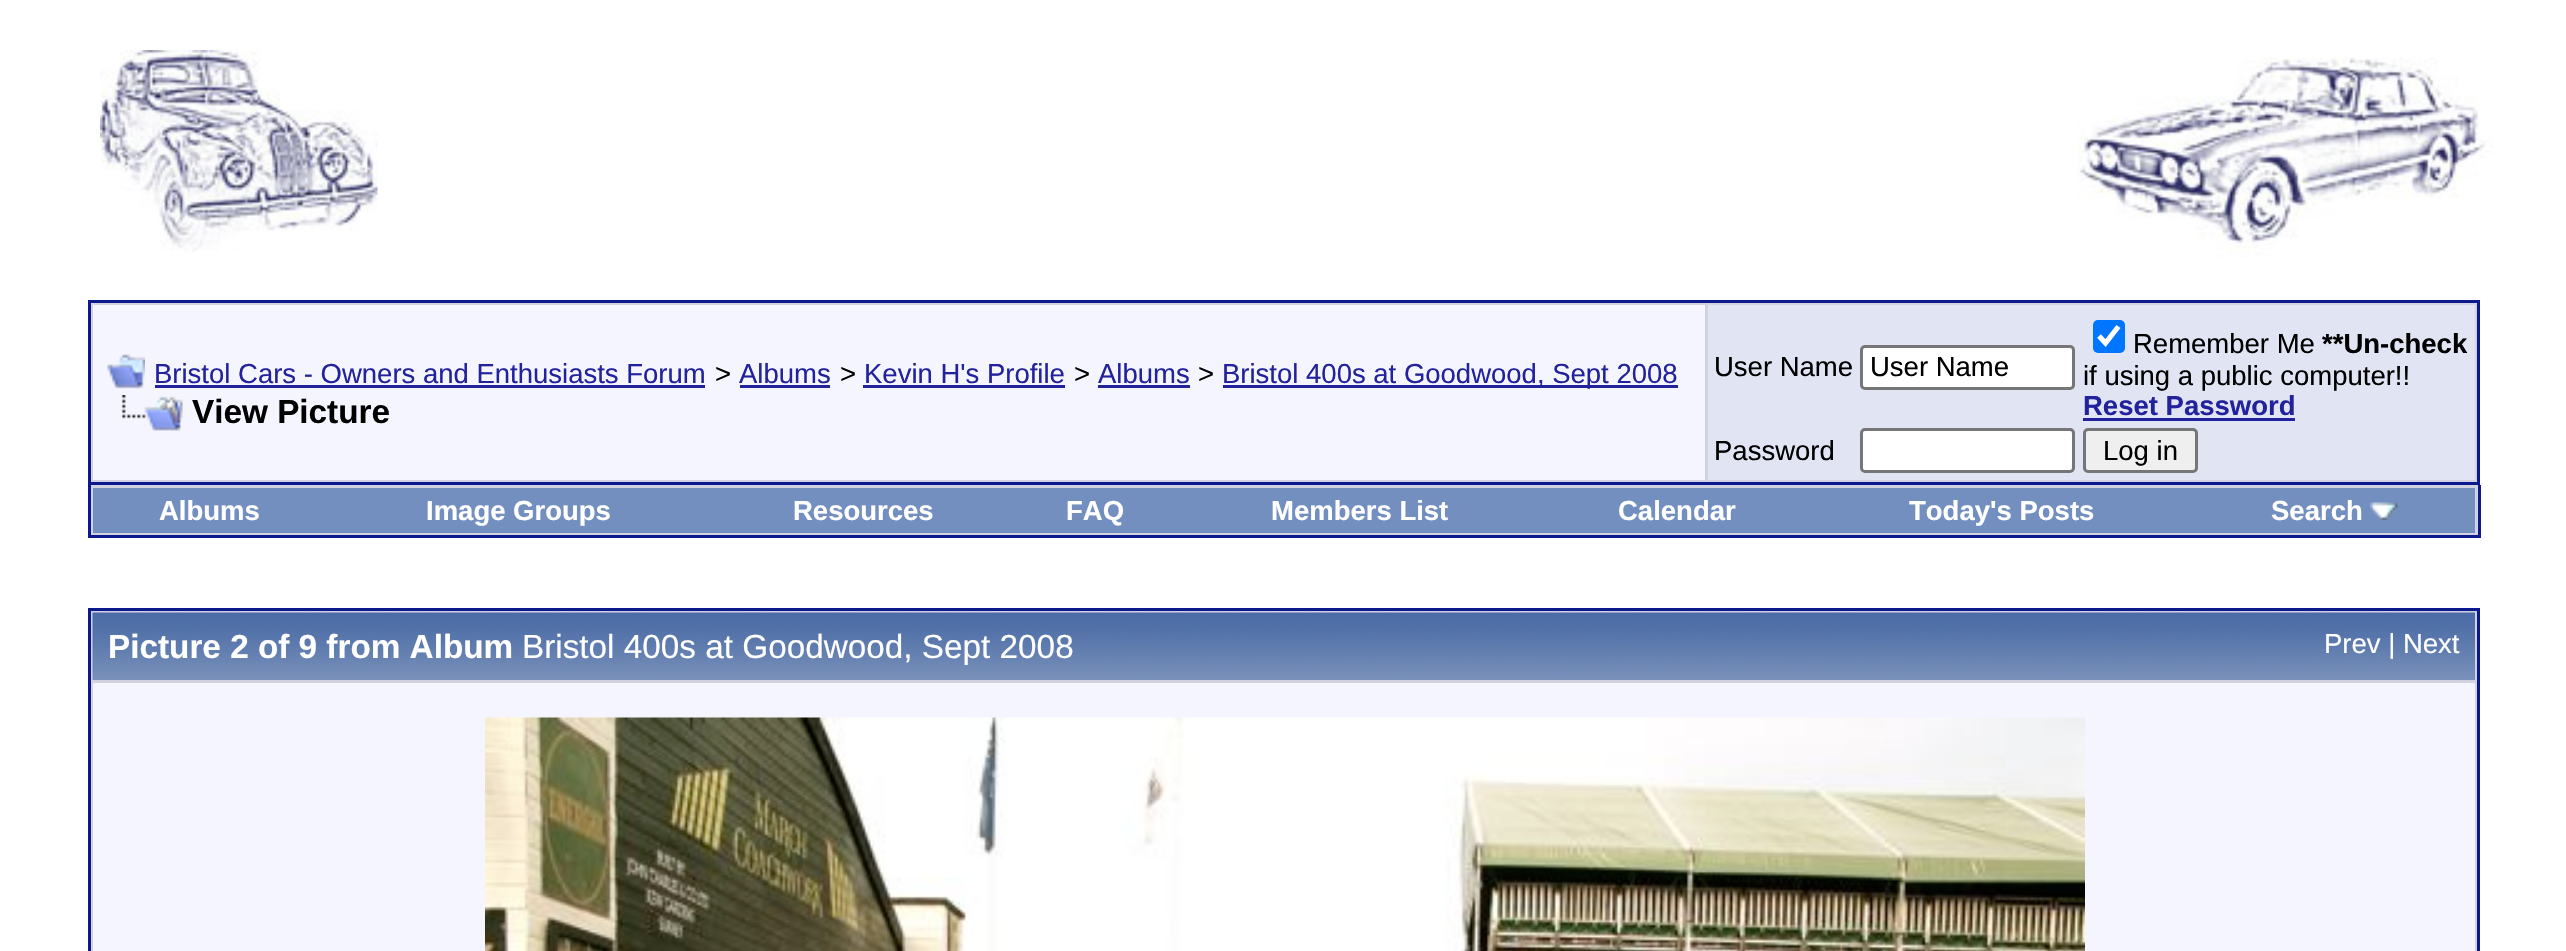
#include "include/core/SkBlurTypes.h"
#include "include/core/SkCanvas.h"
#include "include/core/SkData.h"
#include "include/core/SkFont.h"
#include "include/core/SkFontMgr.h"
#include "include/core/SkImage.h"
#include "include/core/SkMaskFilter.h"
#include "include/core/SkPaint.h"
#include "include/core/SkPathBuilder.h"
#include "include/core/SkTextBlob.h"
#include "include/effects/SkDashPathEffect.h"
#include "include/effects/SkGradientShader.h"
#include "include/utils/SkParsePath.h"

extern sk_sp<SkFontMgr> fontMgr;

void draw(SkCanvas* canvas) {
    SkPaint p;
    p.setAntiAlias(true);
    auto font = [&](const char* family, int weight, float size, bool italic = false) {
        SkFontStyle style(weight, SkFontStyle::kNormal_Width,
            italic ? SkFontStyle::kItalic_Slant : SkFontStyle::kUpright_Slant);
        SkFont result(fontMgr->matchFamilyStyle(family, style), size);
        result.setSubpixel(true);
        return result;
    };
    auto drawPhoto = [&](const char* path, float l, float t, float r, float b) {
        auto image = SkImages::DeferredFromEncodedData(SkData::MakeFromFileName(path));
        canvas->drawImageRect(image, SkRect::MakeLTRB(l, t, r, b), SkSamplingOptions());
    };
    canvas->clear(0xFFFFFFFF);
    drawPhoto("media/1.png", 100, 50, 378, 253);
    drawPhoto("media/2.png", 2077, 57, 2493, 257);
    p.setColor(0xFFD1D1E1);
    canvas->drawRect(SkRect::MakeLTRB(89.5f, 301.5f, 2478.5f, 483.5f), p);
    p.setStyle(SkPaint::kStroke_Style);
    p.setStrokeWidth(3);
    p.setColor(0xFF0B198C);
    canvas->drawRect(SkRect::MakeLTRB(89.5f, 301.5f, 2478.5f, 483.5f), p);
    p.setStyle(SkPaint::kFill_Style);
    p.setColor(0xFFF5F5FF);
    canvas->drawRect(SkRect::MakeLTRB(93, 305, 1705, 480), p);
    drawPhoto("media/3.png", 107, 354, 145, 389);
    auto font1 = font("Liberation Sans", 400, 27.5f);
    p.setColor(0xFF22229C);
    canvas->drawString("Bristol Cars - Owners and Enthusiasts Forum", 154, 383, font1, p);
    canvas->drawRect(SkRect::MakeLTRB(155, 385, 705, 388), p);
    p.setColor(0xFF000000);
    canvas->drawString(">", 715, 383, font1, p);
    p.setColor(0xFF22229C);
    canvas->drawString("Albums", 739, 383, font1, p);
    canvas->drawRect(SkRect::MakeLTRB(740, 385, 830, 388), p);
    p.setColor(0xFF000000);
    canvas->drawString(">", 840, 383, font1, p);
    p.setColor(0xFF22229C);
    canvas->drawString("Kevin H's Profile", 864, 383, font1, p);
    canvas->drawRect(SkRect::MakeLTRB(863, 385, 1065, 388), p);
    p.setColor(0xFF000000);
    canvas->drawString(">", 1074, 383, font1, p);
    p.setColor(0xFF22229C);
    canvas->drawString("Albums", 1098, 383, font1, p);
    canvas->drawRect(SkRect::MakeLTRB(1098, 385, 1190, 388), p);
    p.setColor(0xFF000000);
    canvas->drawString(">", 1198, 383, font1, p);
    p.setColor(0xFF22229C);
    canvas->drawRect(SkRect::MakeLTRB(1223, 385, 1678, 388), p);
    canvas->drawString("Bristol 400s at Goodwood, Sept 2008", 1222, 383, font1, p);
    drawPhoto("media/4.png", 121, 395, 183, 431);
    auto font2 = font("Liberation Sans", 700, 33.3f);
    p.setColor(0xFF000000);
    canvas->drawString("View Picture", 192, 423, font2, p);
    p.setColor(0xFFE1E4F2);
    canvas->drawRect(SkRect::MakeLTRB(1708, 305, 2475, 480), p);
    p.setColor(0xFF000000);
    canvas->drawString("User Name", 1714, 376, font1, p);
    p.setColor(0xFFFFFFFF);
    canvas->drawRoundRect(SkRect::MakeLTRB(1861.5f, 346.5f, 2073.5f, 388.5f), 3.5f, 3.5f, p);
    p.setStyle(SkPaint::kStroke_Style);
    p.setColor(0xFF767676);
    canvas->drawRoundRect(SkRect::MakeLTRB(1861.5f, 346.5f, 2073.5f, 388.5f), 3.5f, 3.5f, p);
    p.setStyle(SkPaint::kFill_Style);
    p.setColor(0xFF000000);
    canvas->drawString("User Name", 1870, 376, font1, p);
    p.setColor(0xFF0075FF);
    canvas->drawRoundRect(SkRect::MakeLTRB(2093, 320, 2125, 353), 5, 5, p);
    p.setStyle(SkPaint::kStroke_Style);
    p.setStrokeWidth(5.2f);
    p.setColor(0xFFFFFFFF);
    canvas->drawPath(SkPathBuilder().moveTo(2099, 336).lineTo(2105.5f, 343).lineTo(2118.5f, 326.5f).detach(), p);
    p.setStyle(SkPaint::kFill_Style);
    p.setColor(0xFF000000);
    canvas->drawString("Remember Me", 2133, 353, font1, p);
    auto font3 = font("Liberation Sans", 700, 27.5f);
    canvas->drawString("**Un-check", 2322, 353, font3, p);
    canvas->drawString("if using a public computer!!", 2083, 385, font1, p);
    p.setColor(0xFF22229C);
    canvas->drawString("Reset Password", 2083, 415, font3, p);
    canvas->drawRect(SkRect::MakeLTRB(2083, 418, 2295, 421), p);
    p.setColor(0xFF000000);
    canvas->drawString("Password", 1714, 460, font1, p);
    p.setColor(0xFFFFFFFF);
    canvas->drawRoundRect(SkRect::MakeLTRB(1861.5f, 429.5f, 2073.5f, 471.5f), 3.5f, 3.5f, p);
    p.setStyle(SkPaint::kStroke_Style);
    p.setStrokeWidth(3);
    p.setColor(0xFF767676);
    canvas->drawRoundRect(SkRect::MakeLTRB(1861.5f, 429.5f, 2073.5f, 471.5f), 3.5f, 3.5f, p);
    p.setStyle(SkPaint::kFill_Style);
    p.setColor(0xFFEFEFEF);
    canvas->drawRoundRect(SkRect::MakeLTRB(2084.5f, 429.5f, 2196.5f, 471.5f), 3.5f, 3.5f, p);
    p.setStyle(SkPaint::kStroke_Style);
    p.setColor(0xFF767676);
    canvas->drawRoundRect(SkRect::MakeLTRB(2084.5f, 429.5f, 2196.5f, 471.5f), 3.5f, 3.5f, p);
    p.setStyle(SkPaint::kFill_Style);
    p.setColor(0xFF000000);
    canvas->drawString("Log in", 2103, 460, font1, p);
    {
        const struct { float l, t, r, b; SkColor color; } items[] = {
            {91, 485, 2478, 535, 0xFFD1D1E1},
            {2478, 485, 2481, 538, 0xFF0B198C},
            {88, 535, 2480, 538, 0xFF0B198C},
            {88, 485, 91, 538, 0xFF0B198C},
            {93, 488, 2475, 533, 0xFF738FBF},
        };
        for (auto [l, t, r, b, color] : items) {
            p.setColor(color);
            canvas->drawRect(SkRect::MakeLTRB(l, t, r, b), p);
        }
    }
    p.setColor(0xFFFFFFFF);
    {
        const struct { const char* s; float x, y; } items[] = {
            {"Albums", 159, 520},
            {"Image Groups", 426, 520},
            {"Resources", 793, 520},
            {"FAQ", 1066, 520},
            {"Members List", 1271, 520},
            {"Calendar", 1618, 520},
            {"Today's Posts", 1909, 520},
            {"Search", 2271, 520},
        };
        for (auto [s, x, y] : items) {
            canvas->drawString(s, x, y, font3, p);
        }
    }
    drawPhoto("media/5.png", 2370, 502, 2398, 520);
    p.setColor(0xFFD1D1E1);
    canvas->drawRect(SkRect::MakeLTRB(89.5f, 609.5f, 2478.5f, 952.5f), p);
    p.setStyle(SkPaint::kStroke_Style);
    p.setColor(0xFF0B198C);
    canvas->drawRect(SkRect::MakeLTRB(89.5f, 609.5f, 2478.5f, 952.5f), p);
    drawPhoto("media/6.png", 92, 612, 2475, 680);
    p.setStyle(SkPaint::kFill_Style);
    p.setColor(0xFFFFFFFF);
    canvas->drawString("Picture 2 of 9 from Album", 108, 658, font2, p);
    auto font4 = font("Liberation Sans", 400, 33.3f);
    canvas->drawString("Bristol 400s at Goodwood, Sept 2008", 522, 658, font4, p);
    canvas->drawString("Prev | Next", 2324, 653, font1, p);
    p.setColor(0xFFF5F5FF);
    canvas->drawRect(SkRect::MakeLTRB(93, 683, 2475, 951), p);
    drawPhoto("media/7.png", 485, 717, 2085, 951);
}
